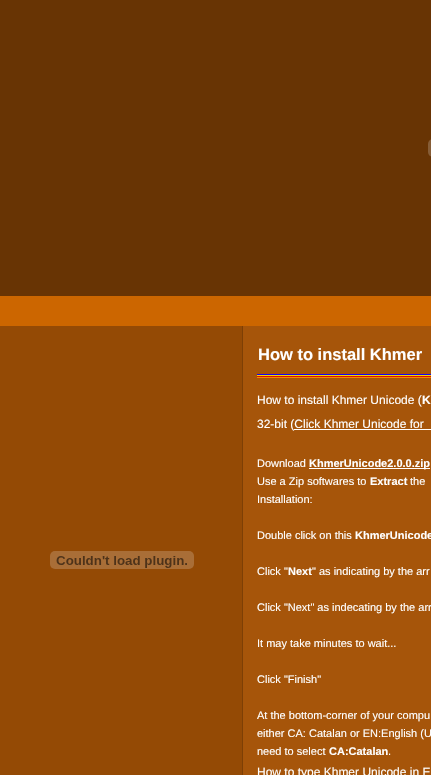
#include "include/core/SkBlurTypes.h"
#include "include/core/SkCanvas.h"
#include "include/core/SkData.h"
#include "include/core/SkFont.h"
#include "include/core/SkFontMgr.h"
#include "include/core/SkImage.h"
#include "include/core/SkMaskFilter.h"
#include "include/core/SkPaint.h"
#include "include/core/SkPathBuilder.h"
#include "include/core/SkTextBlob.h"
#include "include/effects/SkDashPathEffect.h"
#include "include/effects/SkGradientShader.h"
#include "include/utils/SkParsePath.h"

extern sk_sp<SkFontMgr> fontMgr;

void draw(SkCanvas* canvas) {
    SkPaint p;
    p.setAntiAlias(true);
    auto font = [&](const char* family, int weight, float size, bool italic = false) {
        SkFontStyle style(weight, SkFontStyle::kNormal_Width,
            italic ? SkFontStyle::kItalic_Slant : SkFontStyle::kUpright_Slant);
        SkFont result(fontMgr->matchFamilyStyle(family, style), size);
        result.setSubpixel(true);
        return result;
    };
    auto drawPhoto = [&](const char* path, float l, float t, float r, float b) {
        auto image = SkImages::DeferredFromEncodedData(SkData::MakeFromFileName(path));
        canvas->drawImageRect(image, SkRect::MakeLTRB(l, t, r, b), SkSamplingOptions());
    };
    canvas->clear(0xFF683404);
    drawPhoto("media/1.png", 428, 139, 431, 157);
    p.setColor(0xFFCC6600);
    canvas->drawRect(SkRect::MakeLTRB(0, 296, 431, 326), p);
    drawPhoto("media/2.png", 0, 326, 431, 775);
    drawPhoto("media/3.png", 50, 551, 194, 569);
    drawPhoto("media/4.png", 257, 374, 431, 378);
    auto font1 = font("Liberation Sans", 700, 16.5f);
    p.setColor(0xFFFFFFFF);
    canvas->drawString("How to install Khmer", 258, 360, font1, p);
    auto font2 = font("Liberation Sans", 400, 12);
    canvas->drawString("How to install Khmer Unicode (", 257, 404, font2, p);
    auto font3 = font("Liberation Sans", 700, 12);
    canvas->drawString("K", 422, 404, font3, p);
    canvas->drawString("32-bit (Click Khmer Unicode for", 257, 428, font2, p);
    canvas->drawRect(SkRect::MakeLTRB(294, 429, 431, 430), p);
    auto font4 = font("Liberation Sans", 400, 11);
    canvas->drawString("Download", 257, 467, font4, p);
    canvas->drawRect(SkRect::MakeLTRB(309, 468, 430, 469), p);
    auto font5 = font("Liberation Sans", 700, 11);
    canvas->drawString("KhmerUnicode2.0.0.zip", 309, 467, font5, p);
    canvas->drawString("Use a Zip softwares to", 257, 485, font4, p);
    canvas->drawString("Extract", 370, 485, font5, p);
    {
        const struct { const char* s; float x, y; } items[] = {
            {"the", 410, 485},
            {"Installation:", 257, 503},
            {"Double click on this", 257, 539},
        };
        for (auto [s, x, y] : items) {
            canvas->drawString(s, x, y, font4, p);
        }
    }
    canvas->drawString("KhmerUnicode", 355, 539, font5, p);
    canvas->drawString("Click \"", 257, 575, font4, p);
    canvas->drawString("Next", 288, 575, font5, p);
    {
        const struct { const char* s; float x, y; } items[] = {
            {"\" as indicating by the arr", 312, 575},
            {"Click \"Next\" as indecating by the arr", 257, 611},
            {"It may take minutes to wait...", 257, 647},
            {"Click \"Finish\"", 257, 683},
            {"At the bottom-corner of your compu", 257, 719},
            {"either CA: Catalan or EN:English (U", 257, 737},
            {"need to select", 257, 755},
        };
        for (auto [s, x, y] : items) {
            canvas->drawString(s, x, y, font4, p);
        }
    }
    canvas->drawString("CA:Catalan", 329, 755, font5, p);
    canvas->drawString(".", 388, 755, font4, p);
    canvas->drawString("How to type Khmer Unicode in E", 257, 776, font2, p);
}
